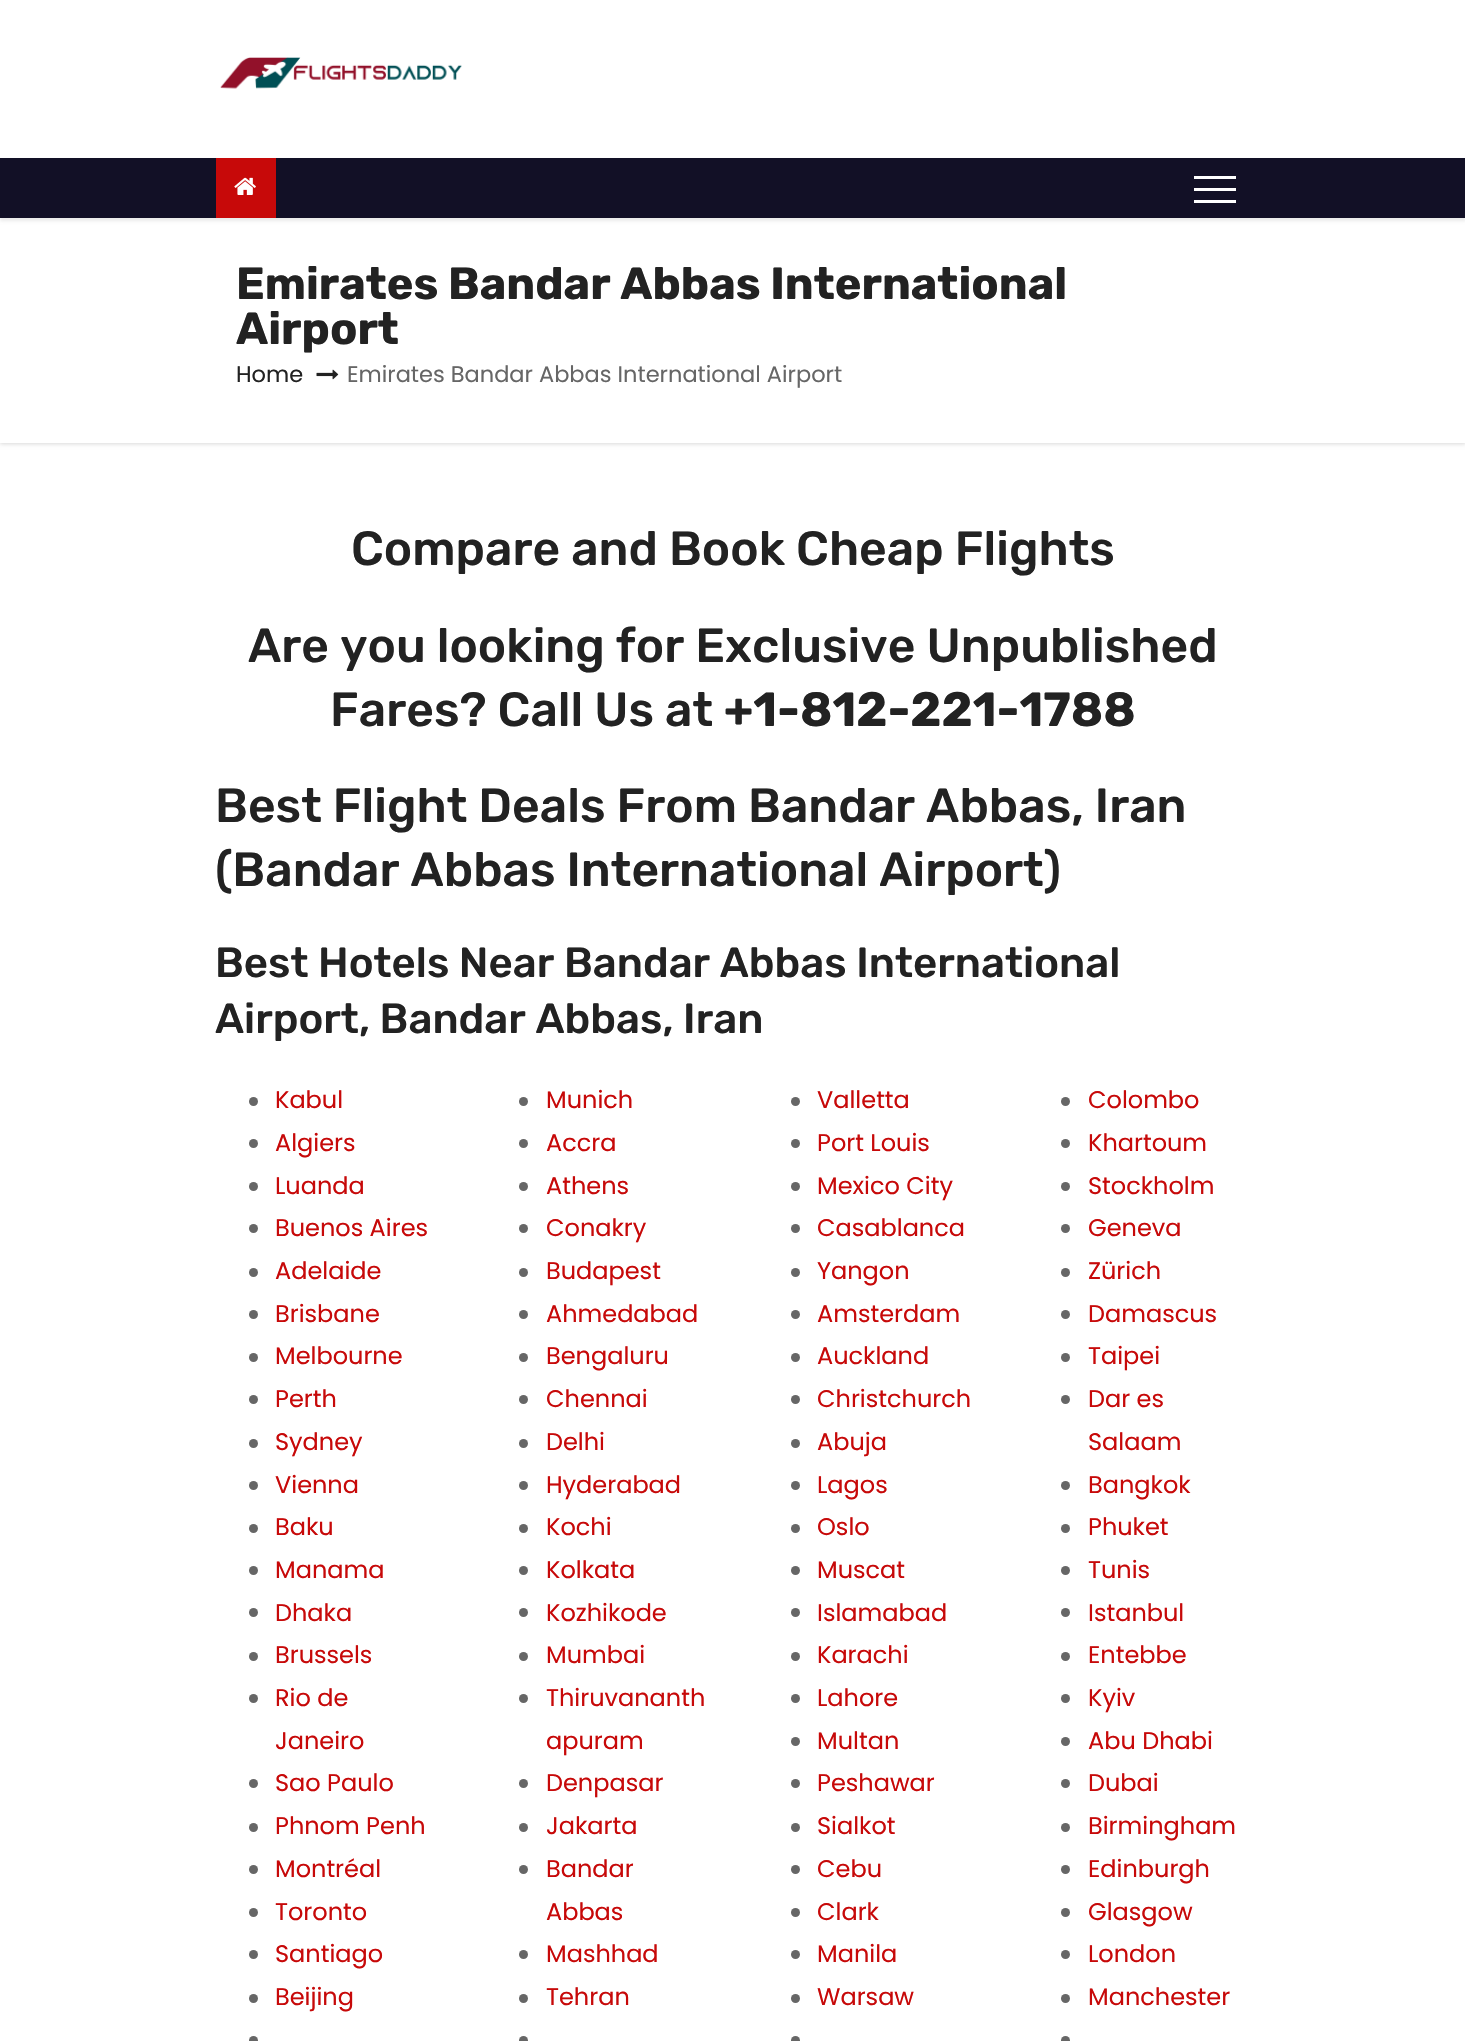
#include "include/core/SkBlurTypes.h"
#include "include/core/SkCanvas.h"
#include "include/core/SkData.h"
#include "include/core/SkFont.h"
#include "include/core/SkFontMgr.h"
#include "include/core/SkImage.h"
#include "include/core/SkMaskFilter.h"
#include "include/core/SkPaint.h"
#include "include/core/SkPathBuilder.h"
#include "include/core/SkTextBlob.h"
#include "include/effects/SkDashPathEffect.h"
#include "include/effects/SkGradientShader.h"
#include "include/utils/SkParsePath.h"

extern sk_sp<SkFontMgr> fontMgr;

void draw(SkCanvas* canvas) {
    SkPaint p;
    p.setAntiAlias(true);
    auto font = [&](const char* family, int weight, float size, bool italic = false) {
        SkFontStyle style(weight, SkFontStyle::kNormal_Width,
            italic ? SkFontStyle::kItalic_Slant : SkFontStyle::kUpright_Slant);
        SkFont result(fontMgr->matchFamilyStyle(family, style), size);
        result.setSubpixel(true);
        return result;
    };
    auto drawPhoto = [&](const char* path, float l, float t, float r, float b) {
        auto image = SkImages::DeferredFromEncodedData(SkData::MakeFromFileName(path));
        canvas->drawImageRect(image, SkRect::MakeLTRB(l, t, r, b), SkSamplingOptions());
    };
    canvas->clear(0xFFFFFFFF);
    drawPhoto("media/1.png", 220, 57, 462, 89);
    p.setColor(0x26000000);
    p.setMaskFilter(SkMaskFilter::MakeBlur(kNormal_SkBlurStyle, 2));
    canvas->drawRect(SkRect::MakeLTRB(0, 219, 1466, 444), p);
    p.setMaskFilter(nullptr);
    p.setColor(0xFFFFFFFF);
    canvas->drawRect(SkRect::MakeLTRB(0, 218, 1465, 443), p);
    p.setColor(0x14000000);
    p.setMaskFilter(SkMaskFilter::MakeBlur(kNormal_SkBlurStyle, 1.5f));
    canvas->drawRect(SkRect::MakeLTRB(0, 161, 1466, 221), p);
    p.setMaskFilter(nullptr);
    p.setColor(0xFF121026);
    canvas->drawRect(SkRect::MakeLTRB(0, 158, 1465, 218), p);
    p.setColor(0xFFC70909);
    canvas->drawRect(SkRect::MakeLTRB(216, 158, 276, 218), p);
    drawPhoto("media/2.png", 234, 177, 256, 195);
    {
        const struct { float l, t, r, b; SkColor color; } items[] = {
            {1194, 176, 1236, 179, 0xFFFFFFFF},
            {1194, 188, 1236, 191, 0xFFFFFFFF},
            {1194, 200, 1236, 203, 0xFFFFFFFF},
        };
        for (auto [l, t, r, b, color] : items) {
            p.setColor(color);
            canvas->drawRect(SkRect::MakeLTRB(l, t, r, b), p);
        }
    }
    auto font1 = font("Rubik", 700, 45);
    p.setColor(0xFF222222);
    canvas->drawString("Emirates Bandar Abbas International", 236, 299, font1, p);
    canvas->drawString("Airport", 236, 344, font1, p);
    auto font2 = font("Poppins", 400, 22.5f);
    canvas->drawString("Home", 236, 382, font2, p);
    drawPhoto("media/3.png", 316, 369, 339, 380);
    p.setColor(0xFF666666);
    canvas->drawString("Emirates Bandar Abbas International Airport", 347, 382, font2, p);
    auto font3 = font("Rubik", 500, 48);
    p.setColor(0xFF222222);
    {
        const struct { const char* s; float x, y; } items[] = {
            {"Compare and Book Cheap Flights", 351, 565},
            {"Are you looking for Exclusive Unpublished", 248, 662},
            {"Fares? Call Us at", 330, 726},
        };
        for (auto [s, x, y] : items) {
            canvas->drawString(s, x, y, font3, p);
        }
    }
    auto font4 = font("Rubik", 700, 48);
    canvas->drawString("+1-812-221-1788", 724, 726, font4, p);
    canvas->drawString("Best Flight Deals From Bandar Abbas, Iran", 215, 822, font3, p);
    canvas->drawString("(Bandar Abbas International Airport)", 215, 886, font3, p);
    auto font5 = font("Rubik", 500, 42);
    canvas->drawString("Best Hotels Near Bandar Abbas International", 215, 977, font5, p);
    canvas->drawString("Airport, Bandar Abbas, Iran", 215, 1033, font5, p);
    p.setColor(0xFF666666);
    canvas->drawCircle(253.5f, 1101.5f, 4.5f, p);
    auto font6 = font("Poppins", 400, 24);
    p.setColor(0xFFC70909);
    canvas->drawString("Kabul", 275, 1108, font6, p);
    p.setColor(0xFF666666);
    canvas->drawCircle(253.5f, 1143.5f, 4.5f, p);
    p.setColor(0xFFC70909);
    canvas->drawString("Algiers", 275, 1151, font6, p);
    p.setColor(0xFF666666);
    canvas->drawCircle(253.5f, 1186.5f, 4.5f, p);
    p.setColor(0xFFC70909);
    canvas->drawString("Luanda", 275, 1194, font6, p);
    p.setColor(0xFF666666);
    canvas->drawCircle(253.5f, 1228.5f, 4.5f, p);
    p.setColor(0xFFC70909);
    canvas->drawString("Buenos Aires", 275, 1236, font6, p);
    p.setColor(0xFF666666);
    canvas->drawCircle(253.5f, 1272.5f, 4.5f, p);
    p.setColor(0xFFC70909);
    canvas->drawString("Adelaide", 275, 1279, font6, p);
    p.setColor(0xFF666666);
    canvas->drawCircle(253.5f, 1314.5f, 4.5f, p);
    p.setColor(0xFFC70909);
    canvas->drawString("Brisbane", 275, 1322, font6, p);
    p.setColor(0xFF666666);
    canvas->drawCircle(253.5f, 1357.5f, 4.5f, p);
    p.setColor(0xFFC70909);
    canvas->drawString("Melbourne", 275, 1364, font6, p);
    p.setColor(0xFF666666);
    canvas->drawCircle(253.5f, 1399.5f, 4.5f, p);
    p.setColor(0xFFC70909);
    canvas->drawString("Perth", 275, 1407, font6, p);
    p.setColor(0xFF666666);
    canvas->drawCircle(253.5f, 1443.5f, 4.5f, p);
    p.setColor(0xFFC70909);
    canvas->drawString("Sydney", 275, 1450, font6, p);
    p.setColor(0xFF666666);
    canvas->drawCircle(253.5f, 1485.5f, 4.5f, p);
    p.setColor(0xFFC70909);
    canvas->drawString("Vienna", 275, 1493, font6, p);
    p.setColor(0xFF666666);
    canvas->drawCircle(253.5f, 1528.5f, 4.5f, p);
    p.setColor(0xFFC70909);
    canvas->drawString("Baku", 275, 1535, font6, p);
    p.setColor(0xFF666666);
    canvas->drawCircle(253.5f, 1570.5f, 4.5f, p);
    p.setColor(0xFFC70909);
    canvas->drawString("Manama", 275, 1578, font6, p);
    p.setColor(0xFF666666);
    canvas->drawCircle(253.5f, 1612.5f, 4.5f, p);
    p.setColor(0xFFC70909);
    canvas->drawString("Dhaka", 275, 1621, font6, p);
    p.setColor(0xFF666666);
    canvas->drawCircle(253.5f, 1656.5f, 4.5f, p);
    p.setColor(0xFFC70909);
    canvas->drawString("Brussels", 275, 1663, font6, p);
    p.setColor(0xFF666666);
    canvas->drawCircle(253.5f, 1698.5f, 4.5f, p);
    p.setColor(0xFFC70909);
    canvas->drawString("Rio de", 275, 1706, font6, p);
    canvas->drawString("Janeiro", 275, 1749, font6, p);
    p.setColor(0xFF666666);
    canvas->drawCircle(253.5f, 1783.5f, 4.5f, p);
    p.setColor(0xFFC70909);
    canvas->drawString("Sao Paulo", 275, 1791, font6, p);
    p.setColor(0xFF666666);
    canvas->drawCircle(253.5f, 1827.5f, 4.5f, p);
    p.setColor(0xFFC70909);
    canvas->drawString("Phnom Penh", 275, 1834, font6, p);
    p.setColor(0xFF666666);
    canvas->drawCircle(253.5f, 1869.5f, 4.5f, p);
    p.setColor(0xFFC70909);
    canvas->drawString("Montréal", 275, 1877, font6, p);
    p.setColor(0xFF666666);
    canvas->drawCircle(253.5f, 1912.5f, 4.5f, p);
    p.setColor(0xFFC70909);
    canvas->drawString("Toronto", 275, 1920, font6, p);
    p.setColor(0xFF666666);
    canvas->drawCircle(253.5f, 1954.5f, 4.5f, p);
    p.setColor(0xFFC70909);
    canvas->drawString("Santiago", 275, 1962, font6, p);
    p.setColor(0xFF666666);
    canvas->drawCircle(253.5f, 1998.5f, 4.5f, p);
    p.setColor(0xFFC70909);
    canvas->drawString("Beijing", 275, 2005, font6, p);
    p.setColor(0xFF666666);
    canvas->drawCircle(253.5f, 2040.5f, 4.5f, p);
    canvas->drawCircle(523.5f, 1101.5f, 4.5f, p);
    p.setColor(0xFFC70909);
    canvas->drawString("Munich", 546, 1108, font6, p);
    p.setColor(0xFF666666);
    canvas->drawCircle(523.5f, 1143.5f, 4.5f, p);
    p.setColor(0xFFC70909);
    canvas->drawString("Accra", 546, 1151, font6, p);
    p.setColor(0xFF666666);
    canvas->drawCircle(523.5f, 1186.5f, 4.5f, p);
    p.setColor(0xFFC70909);
    canvas->drawString("Athens", 546, 1194, font6, p);
    p.setColor(0xFF666666);
    canvas->drawCircle(523.5f, 1228.5f, 4.5f, p);
    p.setColor(0xFFC70909);
    canvas->drawString("Conakry", 546, 1236, font6, p);
    p.setColor(0xFF666666);
    canvas->drawCircle(523.5f, 1272.5f, 4.5f, p);
    p.setColor(0xFFC70909);
    canvas->drawString("Budapest", 546, 1279, font6, p);
    p.setColor(0xFF666666);
    canvas->drawCircle(523.5f, 1314.5f, 4.5f, p);
    p.setColor(0xFFC70909);
    canvas->drawString("Ahmedabad", 546, 1322, font6, p);
    p.setColor(0xFF666666);
    canvas->drawCircle(523.5f, 1357.5f, 4.5f, p);
    p.setColor(0xFFC70909);
    canvas->drawString("Bengaluru", 546, 1364, font6, p);
    p.setColor(0xFF666666);
    canvas->drawCircle(523.5f, 1399.5f, 4.5f, p);
    p.setColor(0xFFC70909);
    canvas->drawString("Chennai", 546, 1407, font6, p);
    p.setColor(0xFF666666);
    canvas->drawCircle(523.5f, 1443.5f, 4.5f, p);
    p.setColor(0xFFC70909);
    canvas->drawString("Delhi", 546, 1450, font6, p);
    p.setColor(0xFF666666);
    canvas->drawCircle(523.5f, 1485.5f, 4.5f, p);
    p.setColor(0xFFC70909);
    canvas->drawString("Hyderabad", 546, 1493, font6, p);
    p.setColor(0xFF666666);
    canvas->drawCircle(523.5f, 1528.5f, 4.5f, p);
    p.setColor(0xFFC70909);
    canvas->drawString("Kochi", 546, 1535, font6, p);
    p.setColor(0xFF666666);
    canvas->drawCircle(523.5f, 1570.5f, 4.5f, p);
    p.setColor(0xFFC70909);
    canvas->drawString("Kolkata", 546, 1578, font6, p);
    p.setColor(0xFF666666);
    canvas->drawCircle(523.5f, 1612.5f, 4.5f, p);
    p.setColor(0xFFC70909);
    canvas->drawString("Kozhikode", 546, 1621, font6, p);
    p.setColor(0xFF666666);
    canvas->drawCircle(523.5f, 1656.5f, 4.5f, p);
    p.setColor(0xFFC70909);
    canvas->drawString("Mumbai", 546, 1663, font6, p);
    p.setColor(0xFF666666);
    canvas->drawCircle(523.5f, 1698.5f, 4.5f, p);
    p.setColor(0xFFC70909);
    canvas->drawString("Thiruvananth", 546, 1706, font6, p);
    canvas->drawString("apuram", 546, 1749, font6, p);
    p.setColor(0xFF666666);
    canvas->drawCircle(523.5f, 1783.5f, 4.5f, p);
    p.setColor(0xFFC70909);
    canvas->drawString("Denpasar", 546, 1791, font6, p);
    p.setColor(0xFF666666);
    canvas->drawCircle(523.5f, 1827.5f, 4.5f, p);
    p.setColor(0xFFC70909);
    canvas->drawString("Jakarta", 546, 1834, font6, p);
    p.setColor(0xFF666666);
    canvas->drawCircle(523.5f, 1869.5f, 4.5f, p);
    p.setColor(0xFFC70909);
    canvas->drawString("Bandar", 546, 1877, font6, p);
    canvas->drawString("Abbas", 546, 1920, font6, p);
    p.setColor(0xFF666666);
    canvas->drawCircle(523.5f, 1954.5f, 4.5f, p);
    p.setColor(0xFFC70909);
    canvas->drawString("Mashhad", 546, 1962, font6, p);
    p.setColor(0xFF666666);
    canvas->drawCircle(523.5f, 1998.5f, 4.5f, p);
    p.setColor(0xFFC70909);
    canvas->drawString("Tehran", 546, 2005, font6, p);
    p.setColor(0xFF666666);
    canvas->drawCircle(523.5f, 2040.5f, 4.5f, p);
    canvas->drawCircle(795.5f, 1101.5f, 4.5f, p);
    p.setColor(0xFFC70909);
    canvas->drawString("Valletta", 817, 1108, font6, p);
    p.setColor(0xFF666666);
    canvas->drawCircle(795.5f, 1143.5f, 4.5f, p);
    p.setColor(0xFFC70909);
    canvas->drawString("Port Louis", 817, 1151, font6, p);
    p.setColor(0xFF666666);
    canvas->drawCircle(795.5f, 1186.5f, 4.5f, p);
    p.setColor(0xFFC70909);
    canvas->drawString("Mexico City", 817, 1194, font6, p);
    p.setColor(0xFF666666);
    canvas->drawCircle(795.5f, 1228.5f, 4.5f, p);
    p.setColor(0xFFC70909);
    canvas->drawString("Casablanca", 817, 1236, font6, p);
    p.setColor(0xFF666666);
    canvas->drawCircle(795.5f, 1272.5f, 4.5f, p);
    p.setColor(0xFFC70909);
    canvas->drawString("Yangon", 817, 1279, font6, p);
    p.setColor(0xFF666666);
    canvas->drawCircle(795.5f, 1314.5f, 4.5f, p);
    p.setColor(0xFFC70909);
    canvas->drawString("Amsterdam", 817, 1322, font6, p);
    p.setColor(0xFF666666);
    canvas->drawCircle(795.5f, 1357.5f, 4.5f, p);
    p.setColor(0xFFC70909);
    canvas->drawString("Auckland", 817, 1364, font6, p);
    p.setColor(0xFF666666);
    canvas->drawCircle(795.5f, 1399.5f, 4.5f, p);
    p.setColor(0xFFC70909);
    canvas->drawString("Christchurch", 817, 1407, font6, p);
    p.setColor(0xFF666666);
    canvas->drawCircle(795.5f, 1443.5f, 4.5f, p);
    p.setColor(0xFFC70909);
    canvas->drawString("Abuja", 817, 1450, font6, p);
    p.setColor(0xFF666666);
    canvas->drawCircle(795.5f, 1485.5f, 4.5f, p);
    p.setColor(0xFFC70909);
    canvas->drawString("Lagos", 817, 1493, font6, p);
    p.setColor(0xFF666666);
    canvas->drawCircle(795.5f, 1528.5f, 4.5f, p);
    p.setColor(0xFFC70909);
    canvas->drawString("Oslo", 817, 1535, font6, p);
    p.setColor(0xFF666666);
    canvas->drawCircle(795.5f, 1570.5f, 4.5f, p);
    p.setColor(0xFFC70909);
    canvas->drawString("Muscat", 817, 1578, font6, p);
    p.setColor(0xFF666666);
    canvas->drawCircle(795.5f, 1612.5f, 4.5f, p);
    p.setColor(0xFFC70909);
    canvas->drawString("Islamabad", 817, 1621, font6, p);
    p.setColor(0xFF666666);
    canvas->drawCircle(795.5f, 1656.5f, 4.5f, p);
    p.setColor(0xFFC70909);
    canvas->drawString("Karachi", 817, 1663, font6, p);
    p.setColor(0xFF666666);
    canvas->drawCircle(795.5f, 1698.5f, 4.5f, p);
    p.setColor(0xFFC70909);
    canvas->drawString("Lahore", 817, 1706, font6, p);
    p.setColor(0xFF666666);
    canvas->drawCircle(795.5f, 1741.5f, 4.5f, p);
    p.setColor(0xFFC70909);
    canvas->drawString("Multan", 817, 1749, font6, p);
    p.setColor(0xFF666666);
    canvas->drawCircle(795.5f, 1783.5f, 4.5f, p);
    p.setColor(0xFFC70909);
    canvas->drawString("Peshawar", 817, 1791, font6, p);
    p.setColor(0xFF666666);
    canvas->drawCircle(795.5f, 1827.5f, 4.5f, p);
    p.setColor(0xFFC70909);
    canvas->drawString("Sialkot", 817, 1834, font6, p);
    p.setColor(0xFF666666);
    canvas->drawCircle(795.5f, 1869.5f, 4.5f, p);
    p.setColor(0xFFC70909);
    canvas->drawString("Cebu", 817, 1877, font6, p);
    p.setColor(0xFF666666);
    canvas->drawCircle(795.5f, 1912.5f, 4.5f, p);
    p.setColor(0xFFC70909);
    canvas->drawString("Clark", 817, 1920, font6, p);
    p.setColor(0xFF666666);
    canvas->drawCircle(795.5f, 1954.5f, 4.5f, p);
    p.setColor(0xFFC70909);
    canvas->drawString("Manila", 817, 1962, font6, p);
    p.setColor(0xFF666666);
    canvas->drawCircle(795.5f, 1998.5f, 4.5f, p);
    p.setColor(0xFFC70909);
    canvas->drawString("Warsaw", 817, 2005, font6, p);
    p.setColor(0xFF666666);
    canvas->drawCircle(795.5f, 2040.5f, 4.5f, p);
    canvas->drawCircle(1065.5f, 1101.5f, 4.5f, p);
    p.setColor(0xFFC70909);
    canvas->drawString("Colombo", 1088, 1108, font6, p);
    p.setColor(0xFF666666);
    canvas->drawCircle(1065.5f, 1143.5f, 4.5f, p);
    p.setColor(0xFFC70909);
    canvas->drawString("Khartoum", 1088, 1151, font6, p);
    p.setColor(0xFF666666);
    canvas->drawCircle(1065.5f, 1186.5f, 4.5f, p);
    p.setColor(0xFFC70909);
    canvas->drawString("Stockholm", 1088, 1194, font6, p);
    p.setColor(0xFF666666);
    canvas->drawCircle(1065.5f, 1228.5f, 4.5f, p);
    p.setColor(0xFFC70909);
    canvas->drawString("Geneva", 1088, 1236, font6, p);
    p.setColor(0xFF666666);
    canvas->drawCircle(1065.5f, 1272.5f, 4.5f, p);
    p.setColor(0xFFC70909);
    canvas->drawString("Zürich", 1088, 1279, font6, p);
    p.setColor(0xFF666666);
    canvas->drawCircle(1065.5f, 1314.5f, 4.5f, p);
    p.setColor(0xFFC70909);
    canvas->drawString("Damascus", 1088, 1322, font6, p);
    p.setColor(0xFF666666);
    canvas->drawCircle(1065.5f, 1357.5f, 4.5f, p);
    p.setColor(0xFFC70909);
    canvas->drawString("Taipei", 1088, 1364, font6, p);
    p.setColor(0xFF666666);
    canvas->drawCircle(1065.5f, 1399.5f, 4.5f, p);
    p.setColor(0xFFC70909);
    canvas->drawString("Dar es", 1088, 1407, font6, p);
    canvas->drawString("Salaam", 1088, 1450, font6, p);
    p.setColor(0xFF666666);
    canvas->drawCircle(1065.5f, 1485.5f, 4.5f, p);
    p.setColor(0xFFC70909);
    canvas->drawString("Bangkok", 1088, 1493, font6, p);
    p.setColor(0xFF666666);
    canvas->drawCircle(1065.5f, 1528.5f, 4.5f, p);
    p.setColor(0xFFC70909);
    canvas->drawString("Phuket", 1088, 1535, font6, p);
    p.setColor(0xFF666666);
    canvas->drawCircle(1065.5f, 1570.5f, 4.5f, p);
    p.setColor(0xFFC70909);
    canvas->drawString("Tunis", 1088, 1578, font6, p);
    p.setColor(0xFF666666);
    canvas->drawCircle(1065.5f, 1612.5f, 4.5f, p);
    p.setColor(0xFFC70909);
    canvas->drawString("Istanbul", 1088, 1621, font6, p);
    p.setColor(0xFF666666);
    canvas->drawCircle(1065.5f, 1656.5f, 4.5f, p);
    p.setColor(0xFFC70909);
    canvas->drawString("Entebbe", 1088, 1663, font6, p);
    p.setColor(0xFF666666);
    canvas->drawCircle(1065.5f, 1698.5f, 4.5f, p);
    p.setColor(0xFFC70909);
    canvas->drawString("Kyiv", 1088, 1706, font6, p);
    p.setColor(0xFF666666);
    canvas->drawCircle(1065.5f, 1741.5f, 4.5f, p);
    p.setColor(0xFFC70909);
    canvas->drawString("Abu Dhabi", 1088, 1749, font6, p);
    p.setColor(0xFF666666);
    canvas->drawCircle(1065.5f, 1783.5f, 4.5f, p);
    p.setColor(0xFFC70909);
    canvas->drawString("Dubai", 1088, 1791, font6, p);
    p.setColor(0xFF666666);
    canvas->drawCircle(1065.5f, 1827.5f, 4.5f, p);
    p.setColor(0xFFC70909);
    canvas->drawString("Birmingham", 1088, 1834, font6, p);
    p.setColor(0xFF666666);
    canvas->drawCircle(1065.5f, 1869.5f, 4.5f, p);
    p.setColor(0xFFC70909);
    canvas->drawString("Edinburgh", 1088, 1877, font6, p);
    p.setColor(0xFF666666);
    canvas->drawCircle(1065.5f, 1912.5f, 4.5f, p);
    p.setColor(0xFFC70909);
    canvas->drawString("Glasgow", 1088, 1920, font6, p);
    p.setColor(0xFF666666);
    canvas->drawCircle(1065.5f, 1954.5f, 4.5f, p);
    p.setColor(0xFFC70909);
    canvas->drawString("London", 1088, 1962, font6, p);
    p.setColor(0xFF666666);
    canvas->drawCircle(1065.5f, 1998.5f, 4.5f, p);
    p.setColor(0xFFC70909);
    canvas->drawString("Manchester", 1088, 2005, font6, p);
    p.setColor(0xFF666666);
    canvas->drawCircle(1065.5f, 2040.5f, 4.5f, p);
}
